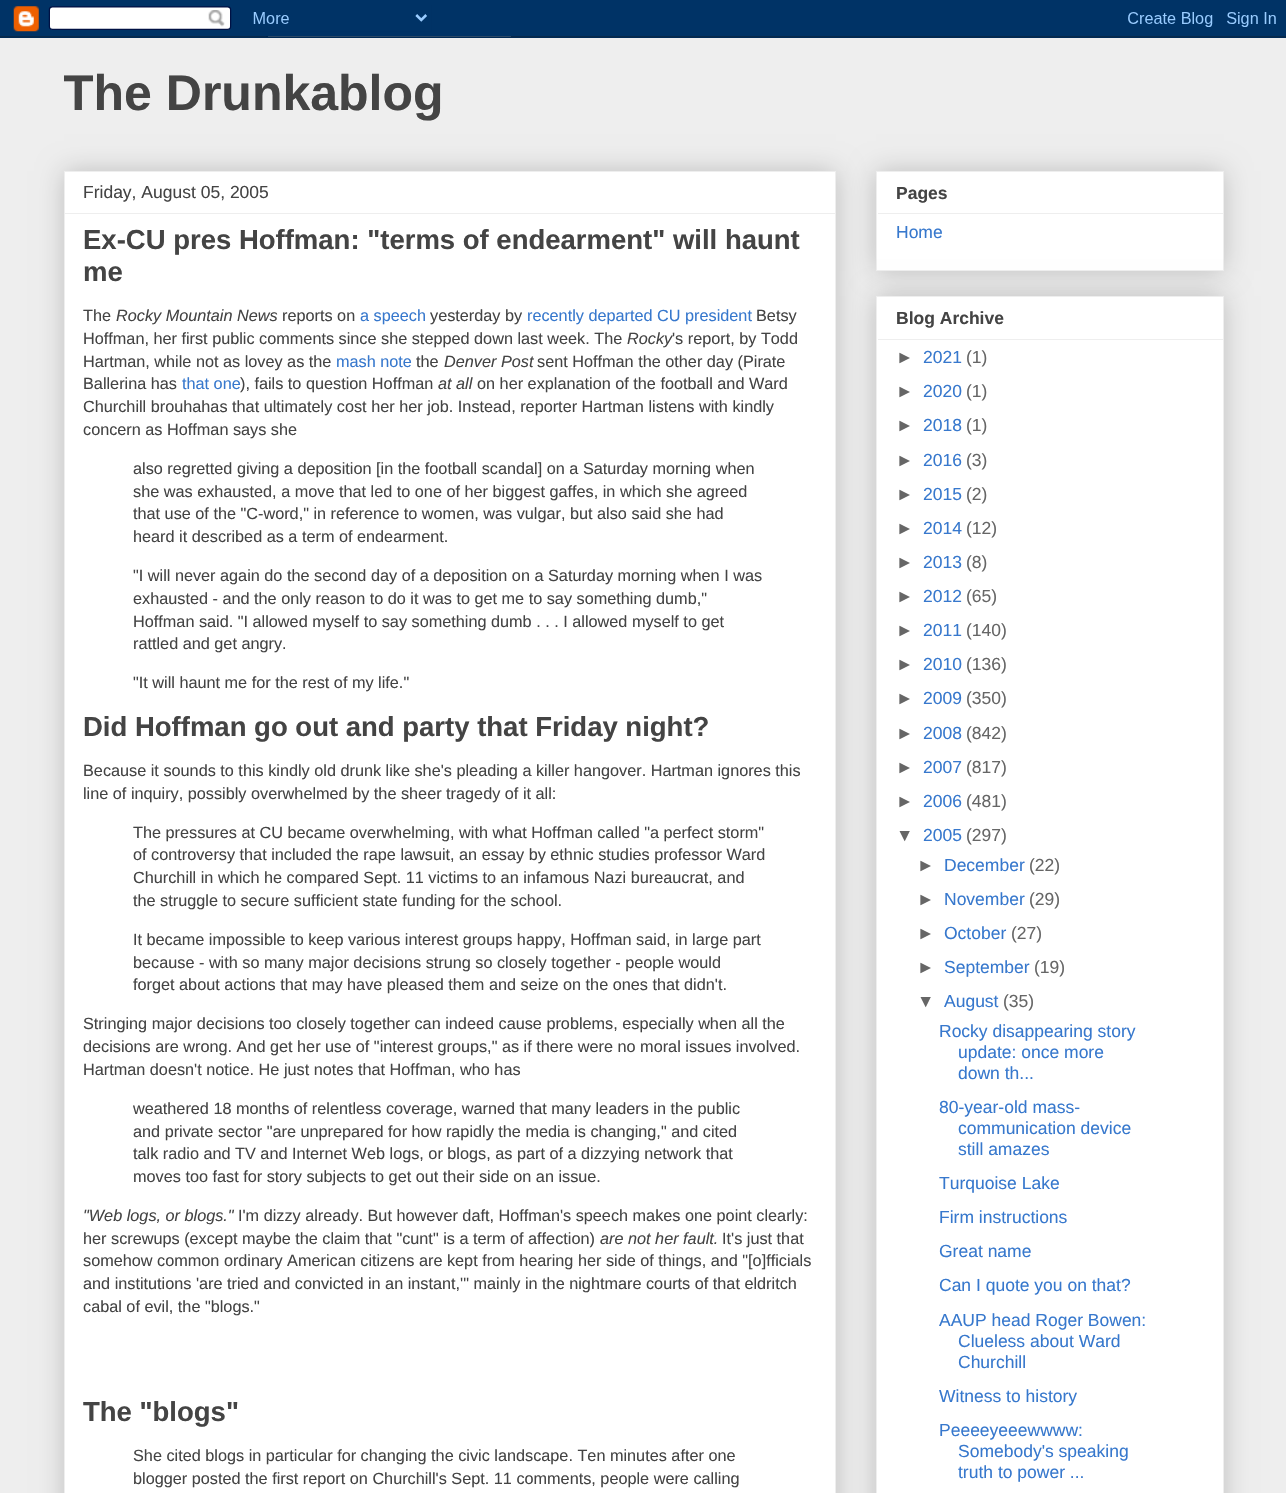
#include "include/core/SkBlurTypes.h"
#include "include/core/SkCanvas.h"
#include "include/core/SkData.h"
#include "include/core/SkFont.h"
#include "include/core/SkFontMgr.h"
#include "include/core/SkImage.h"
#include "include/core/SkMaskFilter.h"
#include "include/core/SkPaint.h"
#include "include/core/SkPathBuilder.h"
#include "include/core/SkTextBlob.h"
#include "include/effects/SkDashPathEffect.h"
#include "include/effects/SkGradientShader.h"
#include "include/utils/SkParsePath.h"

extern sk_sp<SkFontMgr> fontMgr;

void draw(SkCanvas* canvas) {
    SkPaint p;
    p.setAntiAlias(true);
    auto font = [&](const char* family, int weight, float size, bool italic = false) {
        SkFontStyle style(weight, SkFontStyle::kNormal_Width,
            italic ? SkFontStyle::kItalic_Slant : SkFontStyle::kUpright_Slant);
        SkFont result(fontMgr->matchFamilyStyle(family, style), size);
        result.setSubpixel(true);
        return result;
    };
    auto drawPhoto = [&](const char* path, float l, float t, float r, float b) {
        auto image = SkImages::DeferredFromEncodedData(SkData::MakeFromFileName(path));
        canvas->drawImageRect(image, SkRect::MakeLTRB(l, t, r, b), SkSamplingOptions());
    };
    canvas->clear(0xFFEEEEEE);
    drawPhoto("media/1.png", 0, 0, 1286, 38);
    canvas->save();
    canvas->clipRect(SkRect::MakeLTRB(64, 38, 1224, 134));
    auto font1 = font("Liberation Sans", 700, 50);
    p.setColor(0xFF444444);
    canvas->drawString("The Drunkablog", 63, 110, font1, p);
    canvas->restore();
    p.setColor(0x33000000);
    p.setMaskFilter(SkMaskFilter::MakeBlur(kNormal_SkBlurStyle, 12.5f));
    canvas->drawRect(SkRect::MakeLTRB(64, 171, 836, 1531), p);
    p.setMaskFilter(nullptr);
    p.setColor(0xFFFFFFFF);
    canvas->drawRect(SkRect::MakeLTRB(64.5f, 171.5f, 835.5f, 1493.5f), p);
    p.setStyle(SkPaint::kStroke_Style);
    p.setStrokeWidth(1);
    p.setColor(0xFFEEEEEE);
    canvas->drawRect(SkRect::MakeLTRB(64.5f, 171.5f, 835.5f, 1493.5f), p);
    auto font2 = font("Liberation Sans", 400, 17.5f);
    p.setStyle(SkPaint::kFill_Style);
    p.setColor(0xFF444444);
    canvas->drawString("Friday, August 05, 2005", 83, 198, font2, p);
    p.setColor(0xFFEEEEEE);
    canvas->drawRect(SkRect::MakeLTRB(65, 213, 835, 214), p);
    auto font3 = font("Liberation Sans", 700, 27.5f);
    p.setColor(0xFF444444);
    canvas->drawString("Ex-CU pres Hoffman: \"terms of endearment\" will haunt", 83, 249, font3, p);
    canvas->drawString("me", 83, 281, font3, p);
    auto font4 = font("Liberation Sans", 400, 16.25f);
    canvas->drawString("The", 83, 321, font4, p);
    auto font5 = font("Liberation Sans", 400, 16.25f, true);
    canvas->drawString("Rocky Mountain News", 116, 321, font5, p);
    canvas->drawString("reports on", 282, 321, font4, p);
    p.setColor(0xFF3778CD);
    canvas->drawString("a speech", 360, 321, font4, p);
    p.setColor(0xFF444444);
    canvas->drawString("yesterday by", 430, 321, font4, p);
    p.setColor(0xFF3778CD);
    canvas->drawString("recently departed CU president", 527, 321, font4, p);
    p.setColor(0xFF444444);
    canvas->drawString("Betsy", 756, 321, font4, p);
    canvas->drawString("Hoffman, her first public comments since she stepped down last week. The", 83, 344, font4, p);
    canvas->drawString("Rocky", 627, 344, font5, p);
    canvas->drawString("'s report, by Todd", 672, 344, font4, p);
    canvas->drawString("Hartman, while not as lovey as the", 83, 367, font4, p);
    p.setColor(0xFF3778CD);
    canvas->drawString("mash note", 336, 367, font4, p);
    p.setColor(0xFF444444);
    canvas->drawString("the", 416, 367, font4, p);
    canvas->drawString("Denver Post", 444, 367, font5, p);
    canvas->drawString("sent Hoffman the other day (Pirate", 537, 367, font4, p);
    canvas->drawString("Ballerina has", 83, 389, font4, p);
    p.setColor(0xFF3778CD);
    canvas->drawString("that one", 182, 389, font4, p);
    p.setColor(0xFF444444);
    canvas->drawString("), fails to question Hoffman", 240, 389, font4, p);
    canvas->drawString("at all", 438, 389, font5, p);
    {
        const struct { const char* s; float x, y; } items[] = {
            {"on her explanation of the football and Ward", 477, 389},
            {"Churchill brouhahas that ultimately cost her her job. Instead, reporter Hartman listens with kindly", 83, 412},
            {"concern as Hoffman says she", 83, 435},
            {"also regretted giving a deposition [in the football scandal] on a Saturday morning when", 133, 474},
            {"she was exhausted, a move that led to one of her biggest gaffes, in which she agreed", 133, 497},
            {"that use of the \"C-word,\" in reference to women, was vulgar, but also said she had", 133, 519},
            {"heard it described as a term of endearment.", 133, 542},
            {"\"I will never again do the second day of a deposition on a Saturday morning when I was", 133, 581},
            {"exhausted - and the only reason to do it was to get me to say something dumb,\"", 133, 604},
            {"Hoffman said. \"I allowed myself to say something dumb . . . I allowed myself to get", 133, 627},
            {"rattled and get angry.", 133, 649},
            {"\"It will haunt me for the rest of my life.\"", 133, 688},
        };
        for (auto [s, x, y] : items) {
            canvas->drawString(s, x, y, font4, p);
        }
    }
    canvas->drawString("Did Hoffman go out and party that Friday night?", 83, 736, font3, p);
    {
        const struct { const char* s; float x, y; } items[] = {
            {"Because it sounds to this kindly old drunk like she's pleading a killer hangover. Hartman ignores this", 83, 776},
            {"line of inquiry, possibly overwhelmed by the sheer tragedy of it all:", 83, 799},
            {"The pressures at CU became overwhelming, with what Hoffman called \"a perfect storm\"", 133, 838},
            {"of controversy that included the rape lawsuit, an essay by ethnic studies professor Ward", 133, 860},
            {"Churchill in which he compared Sept. 11 victims to an infamous Nazi bureaucrat, and", 133, 883},
            {"the struggle to secure sufficient state funding for the school.", 133, 906},
            {"It became impossible to keep various interest groups happy, Hoffman said, in large part", 133, 945},
            {"because - with so many major decisions strung so closely together - people would", 133, 968},
            {"forget about actions that may have pleased them and seize on the ones that didn't.", 133, 990},
            {"Stringing major decisions too closely together can indeed cause problems, especially when all the", 83, 1029},
            {"decisions are wrong. And get her use of \"interest groups,\" as if there were no moral issues involved.", 83, 1052},
            {"Hartman doesn't notice. He just notes that Hoffman, who has", 83, 1075},
            {"weathered 18 months of relentless coverage, warned that many leaders in the public", 133, 1114},
            {"and private sector \"are unprepared for how rapidly the media is changing,\" and cited", 133, 1137},
            {"talk radio and TV and Internet Web logs, or blogs, as part of a dizzying network that", 133, 1159},
            {"moves too fast for story subjects to get out their side on an issue.", 133, 1182},
        };
        for (auto [s, x, y] : items) {
            canvas->drawString(s, x, y, font4, p);
        }
    }
    canvas->drawString("\"Web logs, or blogs.\"", 83, 1221, font5, p);
    canvas->drawString("I'm dizzy already. But however daft, Hoffman's speech makes one point clearly:", 238, 1221, font4, p);
    canvas->drawString("her screwups (except maybe the claim that \"cunt\" is a term of affection)", 83, 1244, font4, p);
    canvas->drawString("are not her fault.", 600, 1244, font5, p);
    {
        const struct { const char* s; float x, y; } items[] = {
            {"It's just that", 722, 1244},
            {"somehow common ordinary American citizens are kept from hearing her side of things, and \"[o]fficials", 83, 1266},
            {"and institutions 'are tried and convicted in an instant,'\" mainly in the nightmare courts of that eldritch", 83, 1289},
            {"cabal of evil, the \"blogs.\"", 83, 1312},
        };
        for (auto [s, x, y] : items) {
            canvas->drawString(s, x, y, font4, p);
        }
    }
    canvas->drawString("The \"blogs\"", 83, 1421, font3, p);
    canvas->drawString("She cited blogs in particular for changing the civic landscape. Ten minutes after one", 133, 1461, font4, p);
    canvas->drawString("blogger posted the first report on Churchill's Sept. 11 comments, people were calling", 133, 1484, font4, p);
    p.setColor(0x33000000);
    p.setMaskFilter(SkMaskFilter::MakeBlur(kNormal_SkBlurStyle, 12.5f));
    canvas->drawRect(SkRect::MakeLTRB(876, 171, 1224, 271), p);
    p.setMaskFilter(nullptr);
    p.setColor(0xFFFFFFFF);
    canvas->drawRect(SkRect::MakeLTRB(876.5f, 171.5f, 1223.5f, 270.5f), p);
    p.setStyle(SkPaint::kStroke_Style);
    p.setColor(0xFFEEEEEE);
    canvas->drawRect(SkRect::MakeLTRB(876.5f, 171.5f, 1223.5f, 270.5f), p);
    auto font6 = font("Liberation Sans", 700, 17.5f);
    p.setStyle(SkPaint::kFill_Style);
    p.setColor(0xFF444444);
    canvas->drawString("Pages", 896, 199, font6, p);
    p.setColor(0xFFEEEEEE);
    canvas->drawRect(SkRect::MakeLTRB(878, 213, 1223, 214), p);
    p.setColor(0xFF3778CD);
    canvas->drawString("Home", 896, 238, font2, p);
    p.setColor(0x33000000);
    p.setMaskFilter(SkMaskFilter::MakeBlur(kNormal_SkBlurStyle, 12.5f));
    canvas->drawRect(SkRect::MakeLTRB(876, 296, 1224, 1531), p);
    p.setMaskFilter(nullptr);
    p.setColor(0xFFFFFFFF);
    canvas->drawRect(SkRect::MakeLTRB(876.5f, 296.5f, 1223.5f, 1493.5f), p);
    p.setStyle(SkPaint::kStroke_Style);
    p.setColor(0xFFEEEEEE);
    canvas->drawRect(SkRect::MakeLTRB(876.5f, 296.5f, 1223.5f, 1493.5f), p);
    p.setStyle(SkPaint::kFill_Style);
    p.setColor(0xFF444444);
    canvas->drawString("Blog Archive", 896, 324, font6, p);
    p.setColor(0xFFEEEEEE);
    canvas->drawRect(SkRect::MakeLTRB(878, 339, 1223, 340), p);
    p.setColor(0xFF666666);
    canvas->drawString("►", 896, 363, font2, p);
    p.setColor(0xFF3778CD);
    canvas->drawString("2021", 923, 363, font2, p);
    p.setColor(0xFF666666);
    canvas->drawString("(1)", 966, 363, font2, p);
    canvas->drawString("►", 896, 397, font2, p);
    p.setColor(0xFF3778CD);
    canvas->drawString("2020", 923, 397, font2, p);
    p.setColor(0xFF666666);
    canvas->drawString("(1)", 966, 397, font2, p);
    canvas->drawString("►", 896, 431, font2, p);
    p.setColor(0xFF3778CD);
    canvas->drawString("2018", 923, 431, font2, p);
    p.setColor(0xFF666666);
    canvas->drawString("(1)", 966, 431, font2, p);
    canvas->drawString("►", 896, 466, font2, p);
    p.setColor(0xFF3778CD);
    canvas->drawString("2016", 923, 466, font2, p);
    p.setColor(0xFF666666);
    canvas->drawString("(3)", 966, 466, font2, p);
    canvas->drawString("►", 896, 500, font2, p);
    p.setColor(0xFF3778CD);
    canvas->drawString("2015", 923, 500, font2, p);
    p.setColor(0xFF666666);
    canvas->drawString("(2)", 966, 500, font2, p);
    canvas->drawString("►", 896, 534, font2, p);
    p.setColor(0xFF3778CD);
    canvas->drawString("2014", 923, 534, font2, p);
    p.setColor(0xFF666666);
    canvas->drawString("(12)", 966, 534, font2, p);
    canvas->drawString("►", 896, 568, font2, p);
    p.setColor(0xFF3778CD);
    canvas->drawString("2013", 923, 568, font2, p);
    p.setColor(0xFF666666);
    canvas->drawString("(8)", 966, 568, font2, p);
    canvas->drawString("►", 896, 602, font2, p);
    p.setColor(0xFF3778CD);
    canvas->drawString("2012", 923, 602, font2, p);
    p.setColor(0xFF666666);
    canvas->drawString("(65)", 966, 602, font2, p);
    canvas->drawString("►", 896, 636, font2, p);
    p.setColor(0xFF3778CD);
    canvas->drawString("2011", 923, 636, font2, p);
    p.setColor(0xFF666666);
    canvas->drawString("(140)", 966, 636, font2, p);
    canvas->drawString("►", 896, 670, font2, p);
    p.setColor(0xFF3778CD);
    canvas->drawString("2010", 923, 670, font2, p);
    p.setColor(0xFF666666);
    canvas->drawString("(136)", 966, 670, font2, p);
    canvas->drawString("►", 896, 704, font2, p);
    p.setColor(0xFF3778CD);
    canvas->drawString("2009", 923, 704, font2, p);
    p.setColor(0xFF666666);
    canvas->drawString("(350)", 966, 704, font2, p);
    canvas->drawString("►", 896, 739, font2, p);
    p.setColor(0xFF3778CD);
    canvas->drawString("2008", 923, 739, font2, p);
    p.setColor(0xFF666666);
    canvas->drawString("(842)", 966, 739, font2, p);
    canvas->drawString("►", 896, 773, font2, p);
    p.setColor(0xFF3778CD);
    canvas->drawString("2007", 923, 773, font2, p);
    p.setColor(0xFF666666);
    canvas->drawString("(817)", 966, 773, font2, p);
    canvas->drawString("►", 896, 807, font2, p);
    p.setColor(0xFF3778CD);
    canvas->drawString("2006", 923, 807, font2, p);
    p.setColor(0xFF666666);
    canvas->drawString("(481)", 966, 807, font2, p);
    canvas->drawString("▼", 896, 841, font2, p);
    p.setColor(0xFF3778CD);
    canvas->drawString("2005", 923, 841, font2, p);
    p.setColor(0xFF666666);
    canvas->drawString("(297)", 966, 841, font2, p);
    canvas->drawString("►", 917, 871, font2, p);
    p.setColor(0xFF3778CD);
    canvas->drawString("December", 944, 871, font2, p);
    p.setColor(0xFF666666);
    canvas->drawString("(22)", 1029, 871, font2, p);
    canvas->drawString("►", 917, 905, font2, p);
    p.setColor(0xFF3778CD);
    canvas->drawString("November", 944, 905, font2, p);
    p.setColor(0xFF666666);
    canvas->drawString("(29)", 1029, 905, font2, p);
    canvas->drawString("►", 917, 939, font2, p);
    p.setColor(0xFF3778CD);
    canvas->drawString("October", 944, 939, font2, p);
    p.setColor(0xFF666666);
    canvas->drawString("(27)", 1011, 939, font2, p);
    canvas->drawString("►", 917, 973, font2, p);
    p.setColor(0xFF3778CD);
    canvas->drawString("September", 944, 973, font2, p);
    p.setColor(0xFF666666);
    canvas->drawString("(19)", 1034, 973, font2, p);
    canvas->drawString("▼", 917, 1007, font2, p);
    p.setColor(0xFF3778CD);
    canvas->drawString("August", 944, 1007, font2, p);
    p.setColor(0xFF666666);
    canvas->drawString("(35)", 1003, 1007, font2, p);
    p.setColor(0xFF3778CD);
    {
        const struct { const char* s; float x, y; } items[] = {
            {"Rocky disappearing story", 939, 1037},
            {"update: once more", 958, 1058},
            {"down th...", 958, 1079},
            {"80-year-old mass-", 939, 1113},
            {"communication device", 958, 1134},
            {"still amazes", 958, 1155},
            {"Turquoise Lake", 939, 1189},
            {"Firm instructions", 939, 1223},
            {"Great name", 939, 1257},
            {"Can I quote you on that?", 939, 1291},
            {"AAUP head Roger Bowen:", 939, 1326},
            {"Clueless about Ward", 958, 1347},
            {"Churchill", 958, 1368},
            {"Witness to history", 939, 1402},
            {"Peeeeyeeewwww:", 939, 1436},
            {"Somebody's speaking", 958, 1457},
            {"truth to power ...", 958, 1478},
        };
        for (auto [s, x, y] : items) {
            canvas->drawString(s, x, y, font2, p);
        }
    }
}
